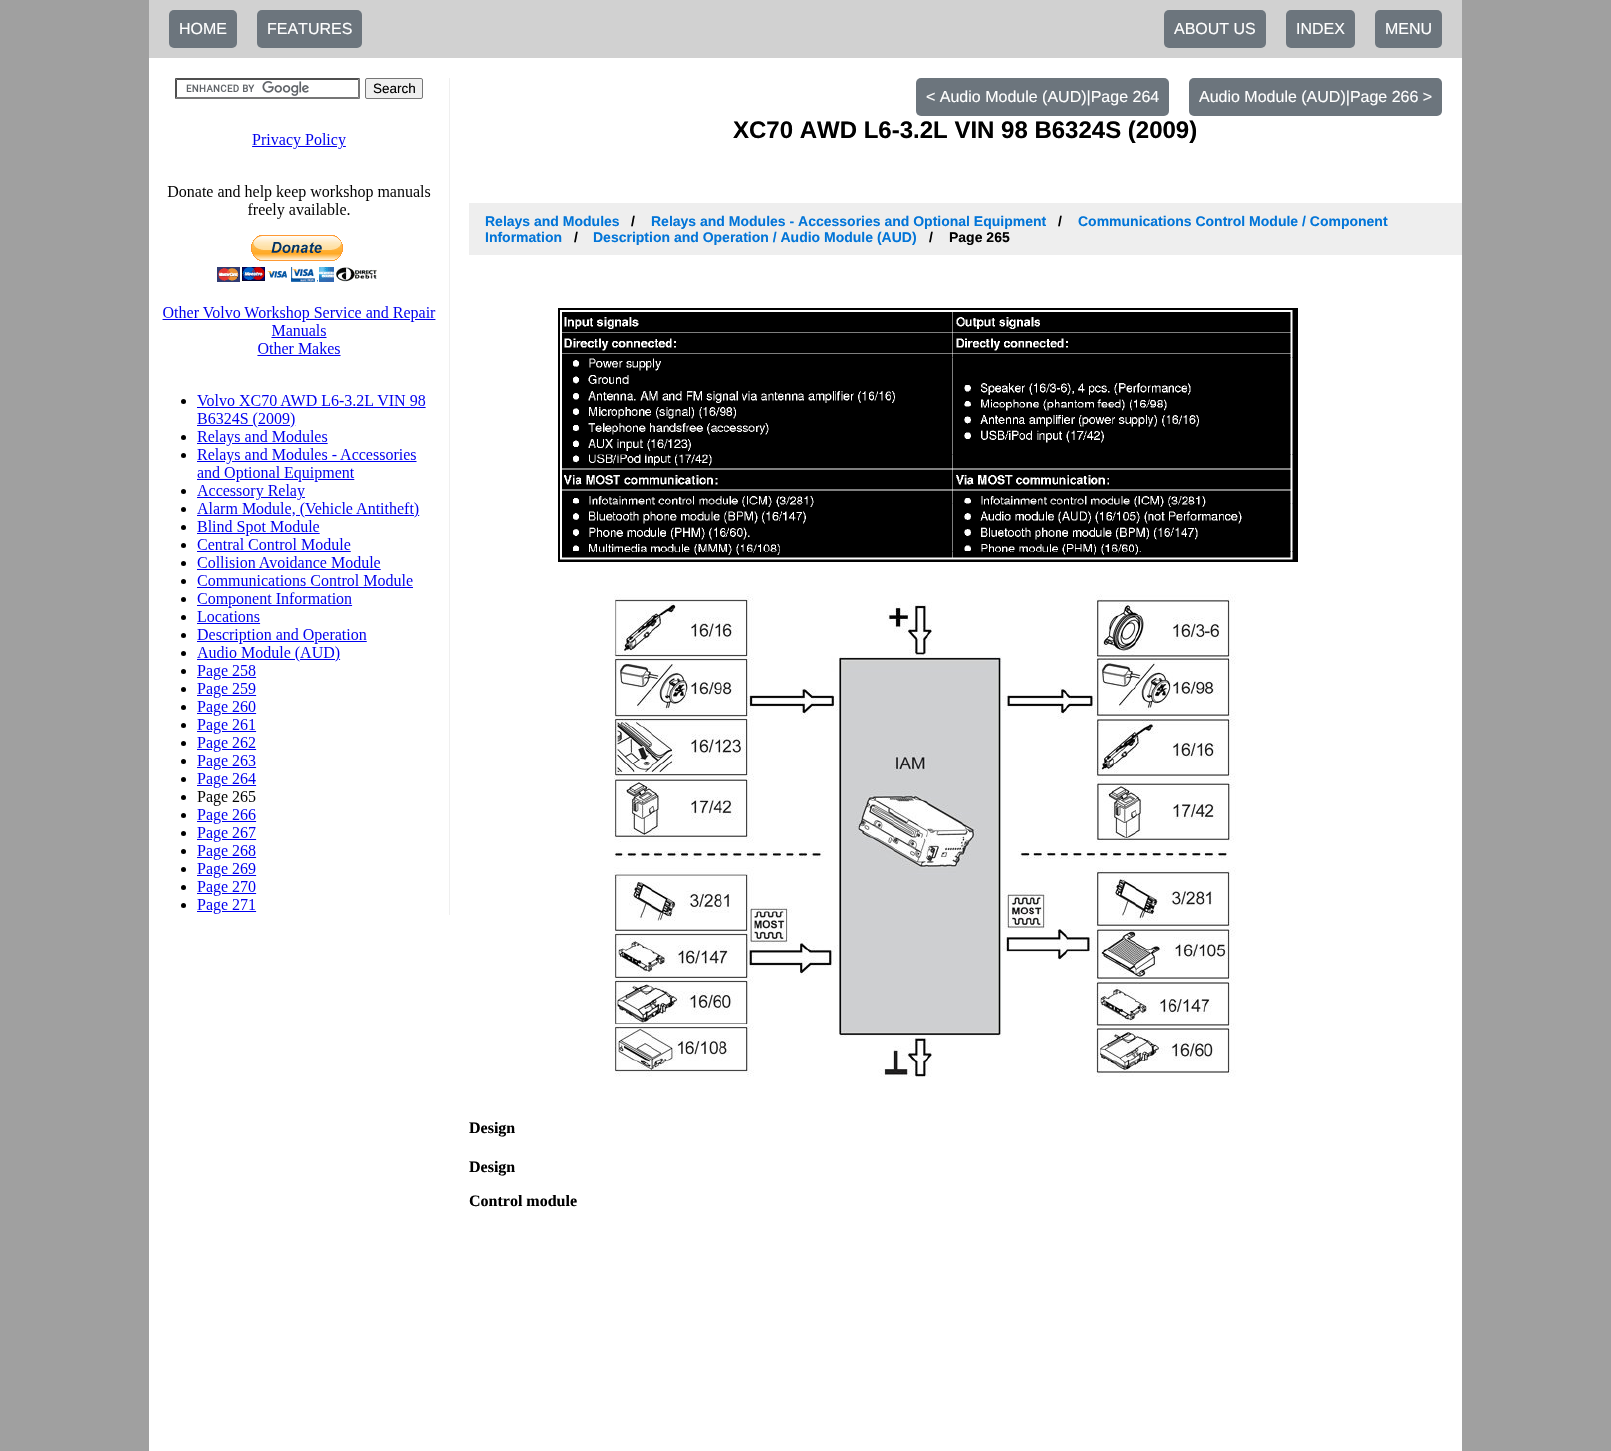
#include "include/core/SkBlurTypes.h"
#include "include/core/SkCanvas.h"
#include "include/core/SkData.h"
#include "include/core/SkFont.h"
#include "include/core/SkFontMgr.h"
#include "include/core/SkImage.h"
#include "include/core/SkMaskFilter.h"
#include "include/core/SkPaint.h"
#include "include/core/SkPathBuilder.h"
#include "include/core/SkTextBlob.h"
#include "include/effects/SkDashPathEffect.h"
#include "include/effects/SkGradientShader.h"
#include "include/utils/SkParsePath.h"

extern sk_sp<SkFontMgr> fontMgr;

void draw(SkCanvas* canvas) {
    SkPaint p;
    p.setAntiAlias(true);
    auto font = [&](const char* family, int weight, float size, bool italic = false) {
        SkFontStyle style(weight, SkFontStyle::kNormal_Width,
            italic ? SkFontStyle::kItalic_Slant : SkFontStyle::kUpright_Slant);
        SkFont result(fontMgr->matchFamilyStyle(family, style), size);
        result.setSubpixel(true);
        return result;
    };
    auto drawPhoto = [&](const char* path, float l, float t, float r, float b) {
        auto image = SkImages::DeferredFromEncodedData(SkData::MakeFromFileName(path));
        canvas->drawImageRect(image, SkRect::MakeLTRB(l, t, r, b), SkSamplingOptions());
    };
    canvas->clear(0xFFA0A0A0);
    p.setColor(0xFFFFFFFF);
    canvas->drawRect(SkRect::MakeLTRB(149, 58, 1462, 1451), p);
    p.setColor(0xFFD1D1D1);
    canvas->drawRect(SkRect::MakeLTRB(149, 0, 1462, 58), p);
    p.setColor(0xFF6C757D);
    canvas->drawRoundRect(SkRect::MakeLTRB(169, 10, 237, 48), 5, 5, p);
    auto font1 = font("Liberation Sans", 400, 16);
    p.setColor(0xFFFFFFFF);
    canvas->drawString("HOME", 179, 34, font1, p);
    p.setColor(0xFF6C757D);
    canvas->drawRoundRect(SkRect::MakeLTRB(257, 10, 362, 48), 5, 5, p);
    p.setColor(0xFFFFFFFF);
    canvas->drawString("FEATURES", 267, 34, font1, p);
    p.setColor(0xFF6C757D);
    canvas->drawRoundRect(SkRect::MakeLTRB(1164, 10, 1266, 48), 5, 5, p);
    p.setColor(0xFFFFFFFF);
    canvas->drawString("ABOUT US", 1174, 34, font1, p);
    p.setColor(0xFF6C757D);
    canvas->drawRoundRect(SkRect::MakeLTRB(1286, 10, 1355, 48), 5, 5, p);
    p.setColor(0xFFFFFFFF);
    canvas->drawString("INDEX", 1296, 34, font1, p);
    p.setColor(0xFF6C757D);
    canvas->drawRoundRect(SkRect::MakeLTRB(1375, 10, 1442, 48), 5, 5, p);
    p.setColor(0xFFFFFFFF);
    canvas->drawString("MENU", 1385, 34, font1, p);
    p.setColor(0xFFEFEFEF);
    canvas->drawRect(SkRect::MakeLTRB(449, 78, 450, 915), p);
    drawPhoto("media/1.png", 186, 81, 309, 96);
    p.setColor(0xFF4F4F4F);
    canvas->drawPath(SkPathBuilder().moveTo(175, 78).lineTo(360, 78).lineTo(358, 80).lineTo(177, 80).close().detach(), p);
    p.setColor(0xFF767676);
    canvas->drawPath(SkPathBuilder().moveTo(360, 78).lineTo(360, 99).lineTo(358, 97).lineTo(358, 80).close().detach(), p);
    canvas->drawPath(SkPathBuilder().moveTo(360, 99).lineTo(175, 99).lineTo(177, 97).lineTo(358, 97).close().detach(), p);
    p.setColor(0xFF4F4F4F);
    canvas->drawPath(SkPathBuilder().moveTo(175, 99).lineTo(175, 78).lineTo(177, 80).lineTo(177, 97).close().detach(), p);
    p.setColor(0xFFEFEFEF);
    canvas->drawRoundRect(SkRect::MakeLTRB(365.5f, 78.5f, 422.5f, 98.5f), 1.5f, 1.5f, p);
    p.setStyle(SkPaint::kStroke_Style);
    p.setStrokeWidth(1);
    p.setColor(0xFF767676);
    canvas->drawRoundRect(SkRect::MakeLTRB(365.5f, 78.5f, 422.5f, 98.5f), 1.5f, 1.5f, p);
    auto font2 = font("Liberation Sans", 400, 13.5f);
    p.setStyle(SkPaint::kFill_Style);
    p.setColor(0xFF000000);
    canvas->drawString("Search", 373, 93, font2, p);
    drawPhoto("media/2.png", 162, 133, 436, 914);
    p.setColor(0xFF6C757D);
    canvas->drawRoundRect(SkRect::MakeLTRB(916, 78, 1169, 116), 5, 5, p);
    p.setColor(0xFFFFFFFF);
    canvas->drawString("< Audio Module (AUD)|Page 264", 926, 102, font1, p);
    p.setColor(0xFF6C757D);
    canvas->drawRoundRect(SkRect::MakeLTRB(1189, 78, 1442, 116), 5, 5, p);
    p.setColor(0xFFFFFFFF);
    canvas->drawString("Audio Module (AUD)|Page 266 >", 1199, 102, font1, p);
    auto font3 = font("Liberation Sans", 700, 24);
    p.setColor(0xFF000000);
    canvas->drawString("XC70 AWD L6-3.2L VIN 98 B6324S (2009)", 733, 138, font3, p);
    p.setColor(0xFFEEEEEE);
    canvas->drawRect(SkRect::MakeLTRB(469, 203, 1462, 255), p);
    auto font4 = font("Liberation Sans", 700, 14);
    p.setColor(0xFF0275D8);
    canvas->drawString("Relays and Modules", 485, 226, font4, p);
    p.setColor(0xFF000000);
    canvas->drawString("/", 631, 226, font4, p);
    p.setColor(0xFF0275D8);
    canvas->drawString("Relays and Modules - Accessories and Optional Equipment", 651, 226, font4, p);
    p.setColor(0xFF000000);
    canvas->drawString("/", 1058, 226, font4, p);
    p.setColor(0xFF0275D8);
    canvas->drawString("Communications Control Module / Component", 1078, 226, font4, p);
    canvas->drawString("Information", 485, 242, font4, p);
    p.setColor(0xFF000000);
    canvas->drawString("/", 574, 242, font4, p);
    p.setColor(0xFF0275D8);
    canvas->drawString("Description and Operation / Audio Module (AUD)", 593, 242, font4, p);
    p.setColor(0xFF000000);
    canvas->drawString("/", 929, 242, font4, p);
    canvas->drawString("Page 265", 949, 242, font4, p);
    drawPhoto("media/3.png", 558, 308, 1298, 1077);
    auto font5 = font("Liberation Serif", 700, 16);
    {
        const struct { const char* s; float x, y; } items[] = {
            {"Design", 469, 1133},
            {"Design", 469, 1172},
            {"Control module", 469, 1206},
        };
        for (auto [s, x, y] : items) {
            canvas->drawString(s, x, y, font5, p);
        }
    }
}
